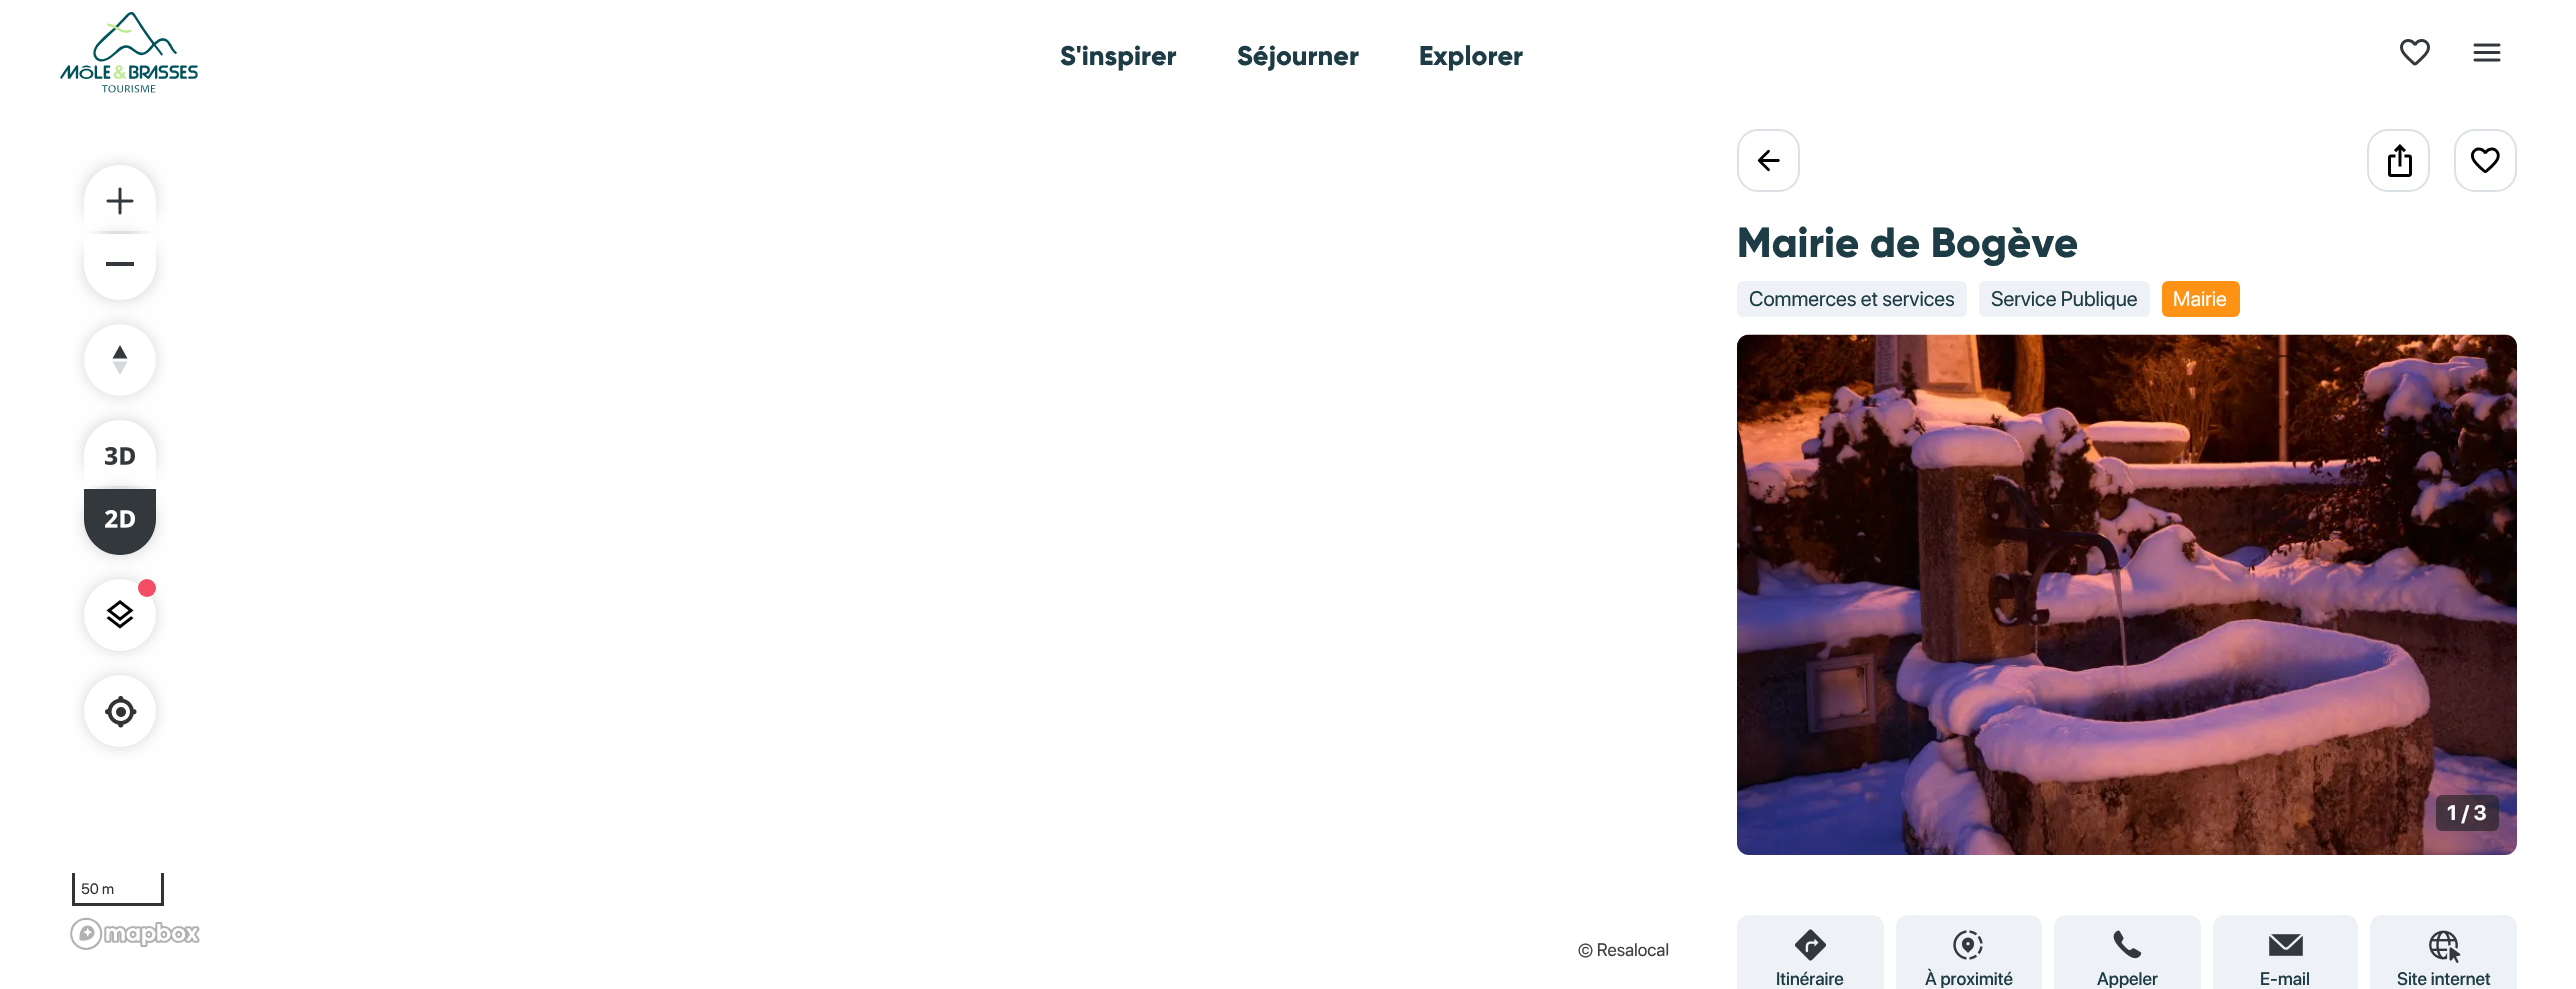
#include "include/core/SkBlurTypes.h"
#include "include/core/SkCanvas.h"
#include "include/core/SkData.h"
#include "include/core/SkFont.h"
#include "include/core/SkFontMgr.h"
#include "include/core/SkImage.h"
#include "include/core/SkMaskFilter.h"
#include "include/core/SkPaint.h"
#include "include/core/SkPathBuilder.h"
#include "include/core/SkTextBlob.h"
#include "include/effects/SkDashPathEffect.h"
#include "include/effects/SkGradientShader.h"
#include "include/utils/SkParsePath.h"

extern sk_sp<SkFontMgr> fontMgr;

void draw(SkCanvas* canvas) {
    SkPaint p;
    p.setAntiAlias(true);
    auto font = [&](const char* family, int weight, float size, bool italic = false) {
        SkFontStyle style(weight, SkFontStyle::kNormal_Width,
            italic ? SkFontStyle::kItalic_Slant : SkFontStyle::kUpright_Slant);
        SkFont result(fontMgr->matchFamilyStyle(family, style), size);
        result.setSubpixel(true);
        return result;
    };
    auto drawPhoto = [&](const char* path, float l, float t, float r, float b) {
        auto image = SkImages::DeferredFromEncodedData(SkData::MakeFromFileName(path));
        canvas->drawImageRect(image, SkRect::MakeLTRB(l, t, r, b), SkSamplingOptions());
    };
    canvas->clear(0xFFFFFFFF);
    drawPhoto("media/1.png", 60, 12, 198, 93);
    auto font1 = font("Gilroy", 800, 27);
    p.setColor(0xFF1D3C45);
    {
        const struct { const char* s; float x, y; } items[] = {
            {"S'inspirer", 1060, 65},
            {"Séjourner", 1237, 65},
            {"Explorer", 1419, 65},
        };
        for (auto [s, x, y] : items) {
            canvas->drawString(s, x, y, font1, p);
        }
    }
    drawPhoto("media/2.png", 2400, 39, 2430, 66);
    drawPhoto("media/3.png", 2473, 43, 2501, 62);
    p.setColor(0x29000000);
    p.setMaskFilter(SkMaskFilter::MakeBlur(kNormal_SkBlurStyle, 7.5f));
    canvas->drawRoundRect(SkRect::MakeLTRB(84, 165, 156, 231), 36, 36, p);
    p.setMaskFilter(nullptr);
    p.setColor(0xFFFFFFFF);
    canvas->drawPath(SkPathBuilder().moveTo(120, 165).cubicTo(140, 165, 156, 181, 156, 201).lineTo(156, 231).lineTo(84, 231).lineTo(84, 201).cubicTo(84, 181, 100, 165, 120, 165).close().detach(), p);
    drawPhoto("media/4.png", 106, 187, 134, 215);
    p.setColor(0x29000000);
    p.setMaskFilter(SkMaskFilter::MakeBlur(kNormal_SkBlurStyle, 7.5f));
    canvas->drawRoundRect(SkRect::MakeLTRB(84, 234, 156, 300), 36, 36, p);
    p.setMaskFilter(nullptr);
    p.setColor(0xFFFFFFFF);
    canvas->drawPath(SkPathBuilder().moveTo(84, 234).lineTo(156, 234).lineTo(156, 264).cubicTo(156, 284, 140, 300, 120, 300).cubicTo(100, 300, 84, 284, 84, 264).close().detach(), p);
    p.setColor(0xFF33383D);
    canvas->drawRect(SkRect::MakeLTRB(106, 262, 134, 266), p);
    p.setColor(0x29000000);
    p.setMaskFilter(SkMaskFilter::MakeBlur(kNormal_SkBlurStyle, 7.5f));
    canvas->drawRoundRect(SkRect::MakeLTRB(84, 324, 156, 396), 36, 36, p);
    p.setMaskFilter(nullptr);
    p.setColor(0xFFFFFFFF);
    canvas->drawCircle(120, 360, 36, p);
    p.setColor(0xFF33383D);
    canvas->drawPath(SkPathBuilder().moveTo(112.5f, 358.5f).lineTo(120, 345).lineTo(127.5f, 358.5f).close().detach(), p);
    p.setColor(0xFFD3DAE0);
    canvas->drawPath(SkPathBuilder().moveTo(112.5f, 361.5f).lineTo(120, 375).lineTo(127.5f, 361.5f).close().detach(), p);
    p.setColor(0x29000000);
    p.setMaskFilter(SkMaskFilter::MakeBlur(kNormal_SkBlurStyle, 7.5f));
    canvas->drawRoundRect(SkRect::MakeLTRB(84, 420, 156, 486), 36, 36, p);
    p.setMaskFilter(nullptr);
    p.setColor(0xFFFFFFFF);
    canvas->drawPath(SkPathBuilder().moveTo(120, 420).cubicTo(140, 420, 156, 436, 156, 456).lineTo(156, 486).lineTo(84, 486).lineTo(84, 456).cubicTo(84, 436, 100, 420, 120, 420).close().detach(), p);
    drawPhoto("media/5.png", 105, 447, 135, 465);
    p.setColor(0x29000000);
    p.setMaskFilter(SkMaskFilter::MakeBlur(kNormal_SkBlurStyle, 7.5f));
    canvas->drawRoundRect(SkRect::MakeLTRB(84, 489, 156, 555), 36, 36, p);
    p.setMaskFilter(nullptr);
    p.setColor(0xFF33383D);
    canvas->drawPath(SkPathBuilder().moveTo(84, 489).lineTo(156, 489).lineTo(156, 519).cubicTo(156, 539, 140, 555, 120, 555).cubicTo(100, 555, 84, 539, 84, 519).close().detach(), p);
    drawPhoto("media/6.png", 105, 510, 135, 528);
    p.setColor(0x29000000);
    p.setMaskFilter(SkMaskFilter::MakeBlur(kNormal_SkBlurStyle, 7.5f));
    canvas->drawRoundRect(SkRect::MakeLTRB(84, 579, 156, 651), 36, 36, p);
    p.setMaskFilter(nullptr);
    p.setColor(0xFFFFFFFF);
    canvas->drawCircle(120, 615, 36, p);
    p.setColor(0xFFF44C65);
    canvas->drawCircle(147, 588, 9, p);
    drawPhoto("media/7.png", 106, 600, 134, 629);
    p.setColor(0x29000000);
    p.setMaskFilter(SkMaskFilter::MakeBlur(kNormal_SkBlurStyle, 7.5f));
    canvas->drawRoundRect(SkRect::MakeLTRB(84, 675, 156, 747), 36, 36, p);
    p.setMaskFilter(nullptr);
    p.setColor(0xFFFFFFFF);
    canvas->drawCircle(120, 711, 36, p);
    drawPhoto("media/8.png", 105, 696, 137, 728);
    {
        const struct { float l, t, r, b; SkColor color; } items[] = {
            {161, 873, 164, 906, 0xFF333333},
            {72, 903, 164, 906, 0xFF333333},
            {72, 873, 75, 906, 0xFF333333},
        };
        for (auto [l, t, r, b, color] : items) {
            p.setColor(color);
            canvas->drawRect(SkRect::MakeLTRB(l, t, r, b), p);
        }
    }
    auto font2 = font("SF Pro Display", 400, 15);
    canvas->drawString("50 m", 81, 894, font2, p);
    canvas->save();
    canvas->clipPath(SkPathBuilder().moveTo(84, 129).lineTo(1653, 129).cubicTo(1666.5f, 129, 1677, 139.5f, 1677, 153).lineTo(1677, 936).cubicTo(1677, 949.5f, 1666.5f, 960, 1653, 960).lineTo(84, 960).cubicTo(70.5f, 960, 60, 949.5f, 60, 936).lineTo(60, 153).cubicTo(60, 139.5f, 70.5f, 129, 84, 129).close().detach(), true);
    auto font3 = font("SF Pro Display", 400, 18);
    p.setColor(0xFF404040);
    canvas->drawString("© Resalocal", 1578, 956, font3, p);
    canvas->restore();
    drawPhoto("media/9.png", 70, 917, 200, 950);
    p.setStyle(SkPaint::kStroke_Style);
    p.setStrokeWidth(2);
    p.setColor(0xFFDCE1E5);
    canvas->drawRoundRect(SkRect::MakeLTRB(1738, 130, 1799, 191), 20, 20, p);
    drawPhoto("media/10.png", 1757, 149, 1780, 172);
    canvas->drawRoundRect(SkRect::MakeLTRB(2368, 130, 2429, 191), 20, 20, p);
    drawPhoto("media/11.png", 2388, 144, 2412, 177);
    canvas->drawRoundRect(SkRect::MakeLTRB(2455, 130, 2516, 191), 20, 20, p);
    drawPhoto("media/12.png", 2470, 147, 2500, 173);
    auto font4 = font("Gilroy", 800, 42);
    p.setStyle(SkPaint::kFill_Style);
    p.setColor(0xFF1D3C45);
    canvas->drawString("Mairie de Bogève", 1737, 257, font4, p);
    p.setColor(0xFFEEF1F5);
    canvas->drawRoundRect(SkRect::MakeLTRB(1737, 281, 1967, 317), 6, 6, p);
    auto font5 = font("SF Pro Display", 400, 21);
    p.setColor(0xFF1D3C45);
    canvas->drawString("Commerces et services", 1749, 306, font5, p);
    p.setColor(0xFFEEF1F5);
    canvas->drawRoundRect(SkRect::MakeLTRB(1979, 281, 2150, 317), 6, 6, p);
    p.setColor(0xFF1D3C45);
    canvas->drawString("Service Publique", 1991, 306, font5, p);
    p.setColor(0xFFFD9215);
    canvas->drawRoundRect(SkRect::MakeLTRB(2162, 281, 2240, 317), 6, 6, p);
    p.setColor(0xFFFFFFFF);
    canvas->drawString("Mairie", 2173, 306, font5, p);
    drawPhoto("media/13.png", 1737, 335, 2517, 855);
    drawPhoto("media/14.png", 1737, 334, 2517, 855);
    p.setColor(0xA8222222);
    canvas->drawRoundRect(SkRect::MakeLTRB(2436, 795, 2499, 831), 6, 6, p);
    auto font6 = font("SF Pro Display", 700, 21);
    p.setColor(0xFFFFFFFF);
    canvas->drawString("1 / 3", 2447, 820, font6, p);
    p.setColor(0xFFEEF1F5);
    canvas->drawPath(SkPathBuilder().moveTo(1749, 915).lineTo(1872, 915).cubicTo(1878.5f, 915, 1884, 920.5f, 1884, 927).lineTo(1884, 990).lineTo(1737, 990).lineTo(1737, 927).cubicTo(1737, 920.5f, 1742.5f, 915, 1749, 915).close().detach(), p);
    drawPhoto("media/15.png", 1794, 929, 1827, 961);
    auto font7 = font("SF Pro Display", 500, 18);
    p.setColor(0xFF1D3C45);
    canvas->drawString("Itinéraire", 1776, 985, font7, p);
    p.setColor(0xFFEEF1F5);
    canvas->drawPath(SkPathBuilder().moveTo(1908, 915).lineTo(2030, 915).cubicTo(2036.5f, 915, 2042, 920.5f, 2042, 927).lineTo(2042, 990).lineTo(1896, 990).lineTo(1896, 927).cubicTo(1896, 920.5f, 1901.5f, 915, 1908, 915).close().detach(), p);
    drawPhoto("media/16.png", 1953, 930, 1983, 960);
    p.setColor(0xFF1D3C45);
    canvas->drawString("À proximité", 1925, 985, font7, p);
    p.setColor(0xFFEEF1F5);
    canvas->drawPath(SkPathBuilder().moveTo(2066, 915).lineTo(2189, 915).cubicTo(2195.5f, 915, 2201, 920.5f, 2201, 927).lineTo(2201, 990).lineTo(2054, 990).lineTo(2054, 927).cubicTo(2054, 920.5f, 2059.5f, 915, 2066, 915).close().detach(), p);
    drawPhoto("media/17.png", 2113, 930, 2142, 959);
    p.setColor(0xFF1D3C45);
    canvas->drawString("Appeler", 2097, 985, font7, p);
    p.setColor(0xFFEEF1F5);
    canvas->drawPath(SkPathBuilder().moveTo(2225, 915).lineTo(2346, 915).cubicTo(2352.5f, 915, 2358, 920.5f, 2358, 927).lineTo(2358, 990).lineTo(2213, 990).lineTo(2213, 927).cubicTo(2213, 920.5f, 2218.5f, 915, 2225, 915).close().detach(), p);
    drawPhoto("media/18.png", 2269, 934, 2303, 956);
    p.setColor(0xFF1D3C45);
    canvas->drawString("E-mail", 2260, 985, font7, p);
    p.setColor(0xFFEEF1F5);
    canvas->drawPath(SkPathBuilder().moveTo(2382, 915).lineTo(2505, 915).cubicTo(2511.5f, 915, 2517, 920.5f, 2517, 927).lineTo(2517, 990).lineTo(2370, 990).lineTo(2370, 927).cubicTo(2370, 920.5f, 2375.5f, 915, 2382, 915).close().detach(), p);
    drawPhoto("media/19.png", 2429, 930, 2461, 963);
    p.setColor(0xFF1D3C45);
    canvas->drawString("Site internet", 2397, 985, font7, p);
}
